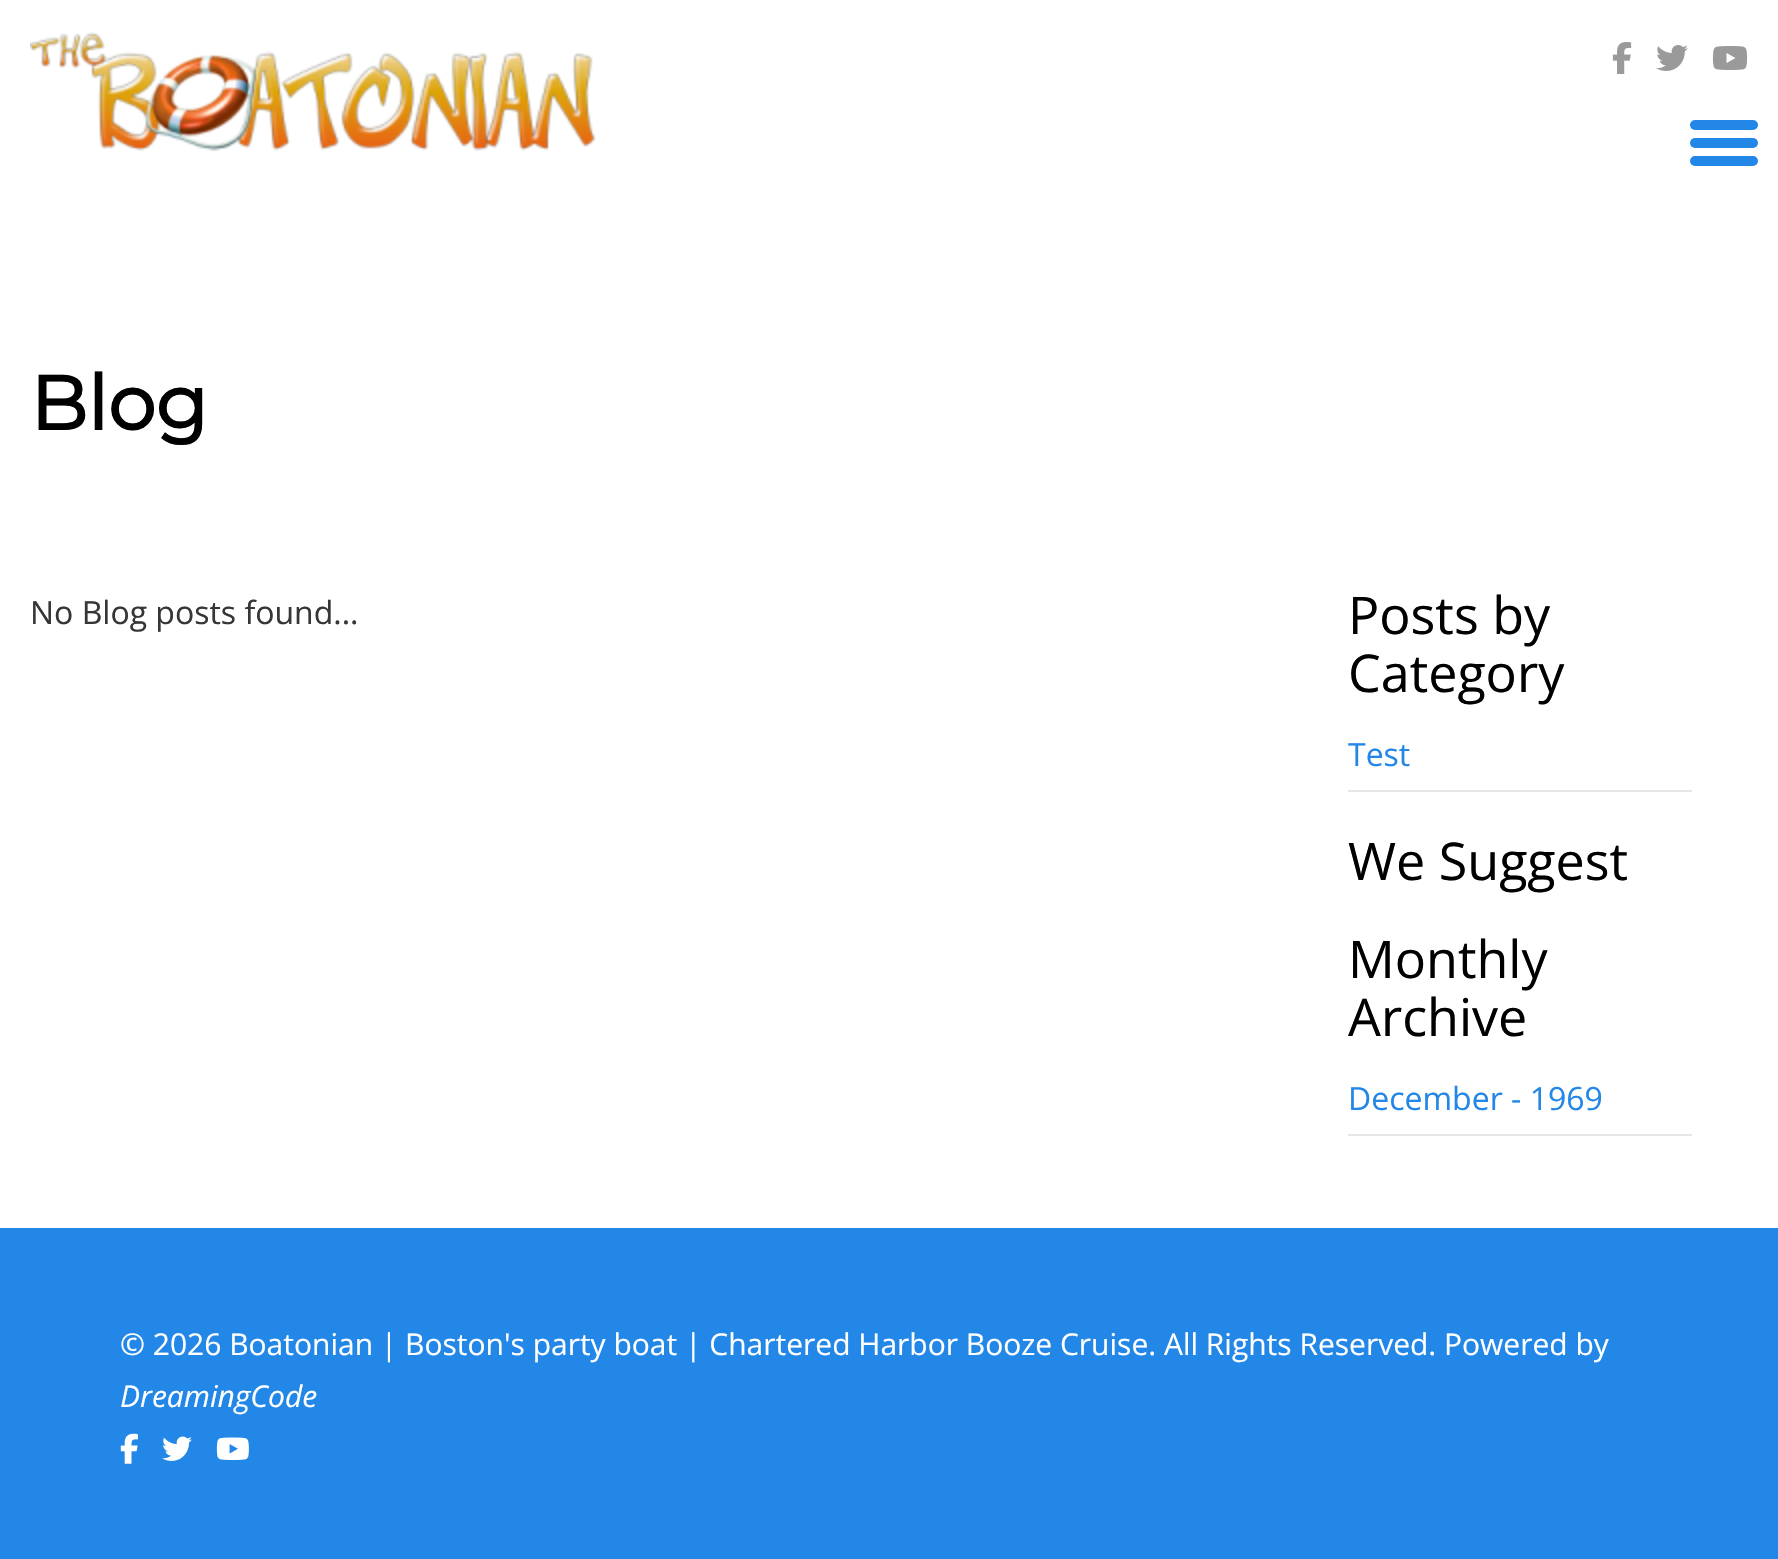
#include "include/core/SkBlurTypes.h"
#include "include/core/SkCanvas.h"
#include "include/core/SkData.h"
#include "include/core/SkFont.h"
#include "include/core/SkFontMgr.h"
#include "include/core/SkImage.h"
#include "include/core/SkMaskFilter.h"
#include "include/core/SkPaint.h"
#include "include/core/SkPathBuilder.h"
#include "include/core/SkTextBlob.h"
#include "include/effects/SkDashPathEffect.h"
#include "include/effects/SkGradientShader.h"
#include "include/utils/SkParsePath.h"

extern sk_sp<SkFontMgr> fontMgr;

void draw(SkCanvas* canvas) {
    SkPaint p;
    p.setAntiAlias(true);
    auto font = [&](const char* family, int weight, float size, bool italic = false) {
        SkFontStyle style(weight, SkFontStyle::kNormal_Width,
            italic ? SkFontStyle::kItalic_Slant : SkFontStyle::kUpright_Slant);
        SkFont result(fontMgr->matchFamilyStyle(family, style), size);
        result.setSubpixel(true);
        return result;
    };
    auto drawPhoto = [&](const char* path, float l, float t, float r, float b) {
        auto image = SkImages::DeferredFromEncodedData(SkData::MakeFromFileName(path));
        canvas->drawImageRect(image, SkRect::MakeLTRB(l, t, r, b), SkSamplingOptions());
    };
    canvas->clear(0xFFFFFFFF);
    drawPhoto("media/1.png", 30, 32, 596, 152);
    drawPhoto("media/2.png", 1612, 42, 1632, 74);
    drawPhoto("media/3.png", 1656, 45, 1688, 71);
    drawPhoto("media/4.png", 1712, 46, 1748, 70);
    p.setColor(0xFF2287E6);
    canvas->drawRoundRect(SkRect::MakeLTRB(1690, 120, 1758, 130), 5, 5, p);
    canvas->drawRoundRect(SkRect::MakeLTRB(1690, 138, 1758, 148), 5, 5, p);
    canvas->drawRoundRect(SkRect::MakeLTRB(1690, 156, 1758, 166), 5, 5, p);
    auto font1 = font("Montserrat", 700, 76);
    p.setColor(0xFF000000);
    canvas->drawString("Blog", 30, 430, font1, p);
    auto font2 = font("Open Sans", 400, 32);
    p.setColor(0xFF363636);
    canvas->drawString("No Blog posts found...", 30, 624, font2, p);
    auto font3 = font("Open Sans", 400, 52);
    p.setColor(0xFF000000);
    canvas->drawString("Posts by", 1348, 634, font3, p);
    canvas->drawString("Category", 1348, 692, font3, p);
    p.setColor(0xFFE7E7E7);
    canvas->drawRect(SkRect::MakeLTRB(1348, 790, 1692, 792), p);
    p.setColor(0xFF2287E6);
    canvas->drawString("Test", 1348, 766, font2, p);
    p.setColor(0xFF000000);
    {
        const struct { const char* s; float x, y; } items[] = {
            {"We Suggest", 1348, 880},
            {"Monthly", 1348, 978},
            {"Archive", 1348, 1036},
        };
        for (auto [s, x, y] : items) {
            canvas->drawString(s, x, y, font3, p);
        }
    }
    p.setColor(0xFFE7E7E7);
    canvas->drawRect(SkRect::MakeLTRB(1348, 1134, 1692, 1136), p);
    p.setColor(0xFF2287E6);
    canvas->drawString("December - 1969", 1348, 1110, font2, p);
    canvas->drawRect(SkRect::MakeLTRB(0, 1228, 1778, 1559), p);
    auto font4 = font("Open Sans", 400, 30);
    p.setColor(0xFFFFFFFF);
    canvas->drawString("© 2026 Boatonian | Boston's party boat | Chartered Harbor Booze Cruise. All Rights Reserved. Powered by", 120, 1355, font4, p);
    auto font5 = font("Open Sans", 400, 30, true);
    canvas->drawString("DreamingCode", 120, 1407, font5, p);
    drawPhoto("media/5.png", 120, 1433, 138, 1464);
    drawPhoto("media/6.png", 162, 1436, 192, 1461);
    drawPhoto("media/7.png", 216, 1437, 249, 1460);
}
